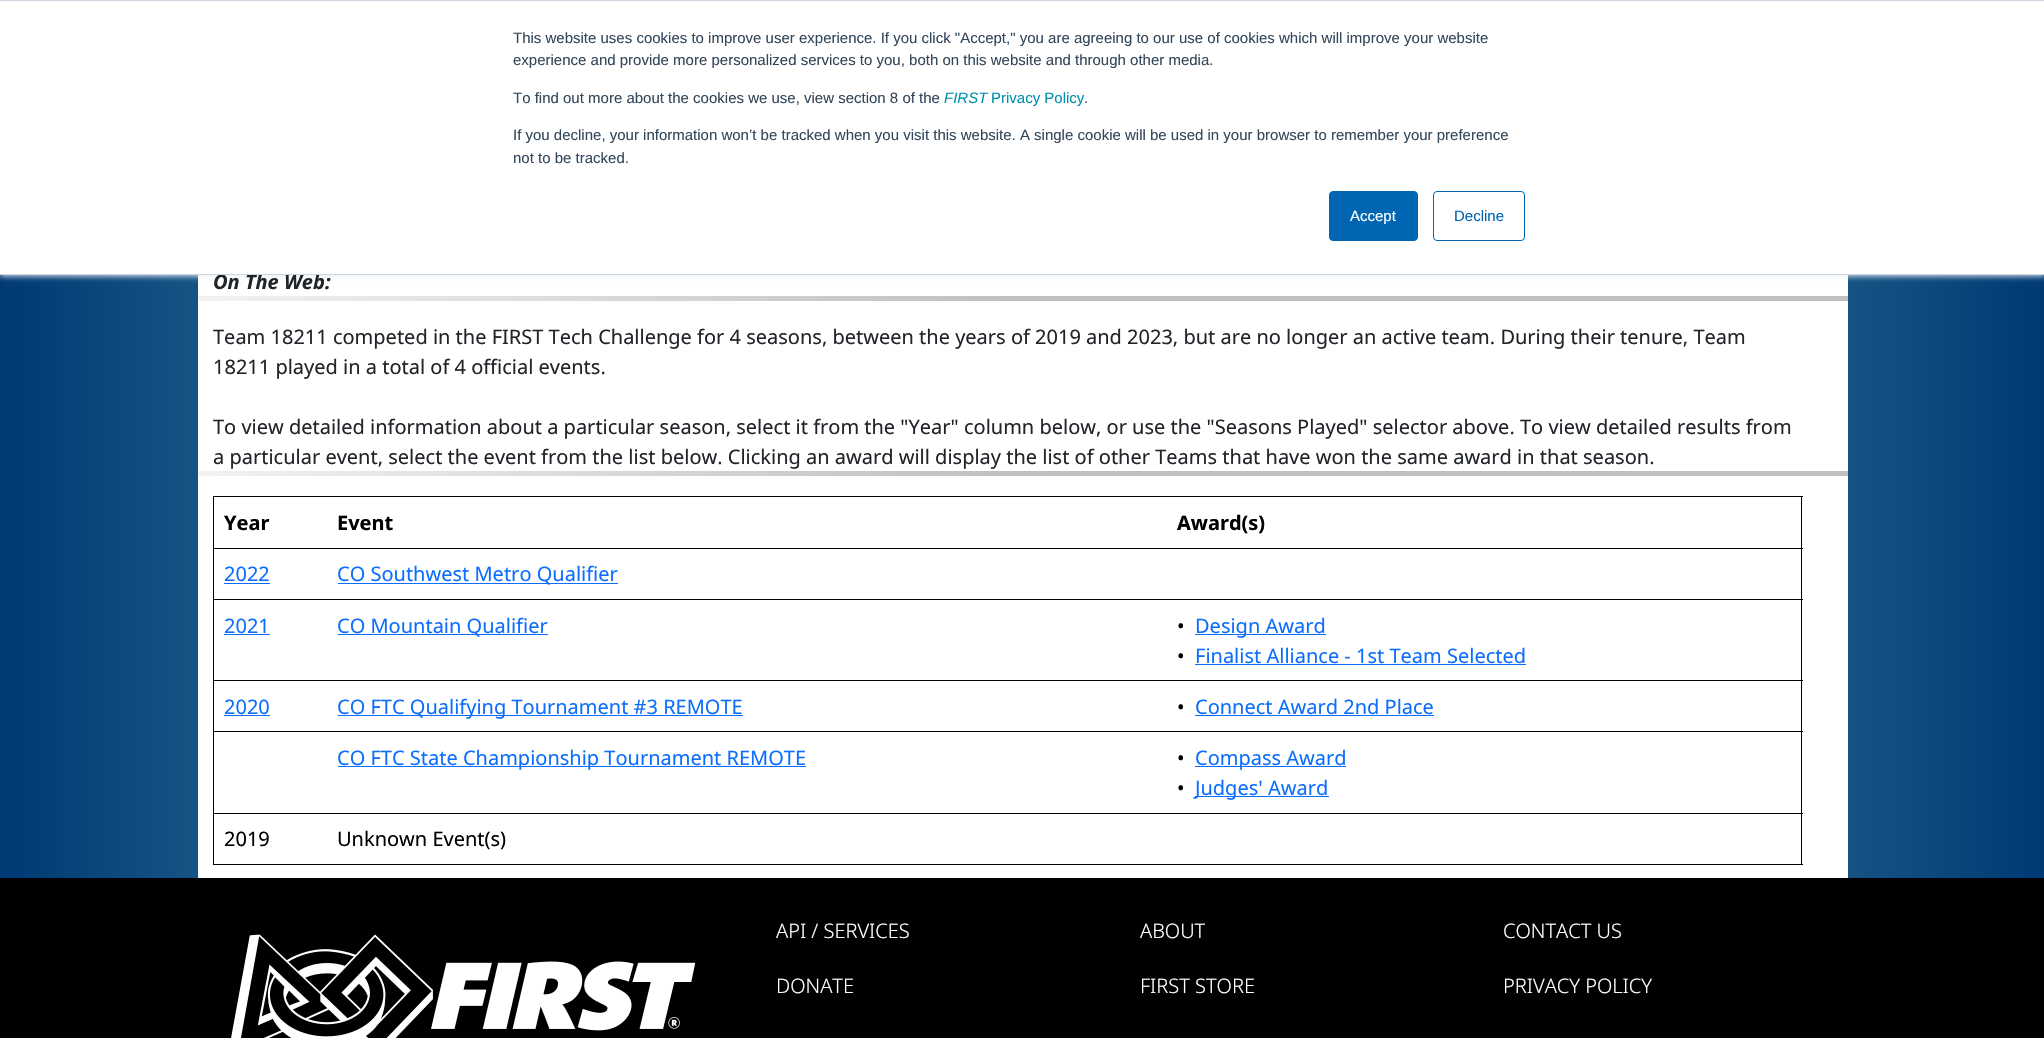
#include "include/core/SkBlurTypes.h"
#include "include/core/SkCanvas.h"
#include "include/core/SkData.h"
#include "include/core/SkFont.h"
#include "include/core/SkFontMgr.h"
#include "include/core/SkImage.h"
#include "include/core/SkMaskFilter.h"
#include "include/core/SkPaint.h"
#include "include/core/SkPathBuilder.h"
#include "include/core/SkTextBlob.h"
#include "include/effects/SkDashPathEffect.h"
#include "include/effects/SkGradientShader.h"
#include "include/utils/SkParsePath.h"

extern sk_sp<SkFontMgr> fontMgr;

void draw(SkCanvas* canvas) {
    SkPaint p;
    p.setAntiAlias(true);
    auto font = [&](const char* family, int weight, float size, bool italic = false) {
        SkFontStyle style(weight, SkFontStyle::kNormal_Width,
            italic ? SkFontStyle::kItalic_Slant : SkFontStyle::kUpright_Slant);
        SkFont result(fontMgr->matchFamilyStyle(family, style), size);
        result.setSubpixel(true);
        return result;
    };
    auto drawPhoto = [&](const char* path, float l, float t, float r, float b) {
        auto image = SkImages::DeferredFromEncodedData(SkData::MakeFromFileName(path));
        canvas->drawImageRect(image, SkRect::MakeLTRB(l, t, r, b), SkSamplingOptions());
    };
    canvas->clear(0xFFFFFFFF);
    {
        const SkColor colors[] = {0xFF003974, 0xFF6CC2C9, 0xFF003974};
        const float stops[] = {0, 0.5f, 1};
        const SkPoint ends[] = {{0, 598}, {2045, 598}};
        p.setShader(SkGradientShader::MakeLinear(ends, colors, stops, 3, SkTileMode::kClamp));
        p.setAlpha(255);
    }
    canvas->drawRect(SkRect::MakeLTRB(0, 275, 2044, 878), p);
    p.setShader(nullptr);
    p.setColor(0xFFFFFFFF);
    canvas->drawRect(SkRect::MakeLTRB(198, 275, 1848, 878), p);
    p.setColor(0xFFEAF0F6);
    p.setMaskFilter(SkMaskFilter::MakeBlur(kNormal_SkBlurStyle, 3));
    canvas->drawRect(SkRect::MakeLTRB(0, 1, 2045, 276), p);
    p.setMaskFilter(nullptr);
    auto font1 = font("Noto Sans", 700, 20, true);
    p.setColor(0xFF212529);
    canvas->drawString("On The Web:", 213, 289, font1, p);
    {
        const struct { float l, t, r, b; SkColor color; } items[] = {
            {0, 1, 2044, 274, 0xFFFFFFFF},
            {0, 0, 2044, 1, 0xFFCBD6E2},
            {0, 274, 2044, 275, 0xFFCBD6E2},
        };
        for (auto [l, t, r, b, color] : items) {
            p.setColor(color);
            canvas->drawRect(SkRect::MakeLTRB(l, t, r, b), p);
        }
    }
    auto font2 = font("Liberation Sans", 400, 15);
    p.setColor(0xFF33475B);
    {
        const struct { const char* s; float x, y; } items[] = {
            {"This website uses cookies to improve user experience. If you click \"Accept,\" you are agreeing to our use of cookies which will improve your website", 513, 43},
            {"experience and provide more personalized services to you, both on this website and through other media.", 513, 65},
            {"To find out more about the cookies we use, view section 8 of the", 513, 103},
        };
        for (auto [s, x, y] : items) {
            canvas->drawString(s, x, y, font2, p);
        }
    }
    auto font3 = font("Liberation Sans", 400, 15, true);
    p.setColor(0xFF0091AE);
    canvas->drawString("FIRST", 944, 103, font3, p);
    canvas->drawString("Privacy Policy", 991, 103, font2, p);
    p.setColor(0xFF33475B);
    {
        const struct { const char* s; float x, y; } items[] = {
            {".", 1084, 103},
            {"If you decline, your information won’t be tracked when you visit this website. A single cookie will be used in your browser to remember your preference", 513, 140},
            {"not to be tracked.", 513, 163},
        };
        for (auto [s, x, y] : items) {
            canvas->drawString(s, x, y, font2, p);
        }
    }
    p.setColor(0xFF0066B3);
    canvas->drawRoundRect(SkRect::MakeLTRB(1329.5f, 191.5f, 1417.5f, 240.5f), 3.5f, 3.5f, p);
    p.setStyle(SkPaint::kStroke_Style);
    p.setStrokeWidth(1);
    canvas->drawRoundRect(SkRect::MakeLTRB(1329.5f, 191.5f, 1417.5f, 240.5f), 3.5f, 3.5f, p);
    p.setStyle(SkPaint::kFill_Style);
    p.setColor(0xFFFFFFFF);
    canvas->drawString("Accept", 1350, 221, font2, p);
    p.setStyle(SkPaint::kStroke_Style);
    p.setColor(0xFF0066B3);
    canvas->drawRoundRect(SkRect::MakeLTRB(1433.5f, 191.5f, 1524.5f, 240.5f), 3.5f, 3.5f, p);
    p.setStyle(SkPaint::kFill_Style);
    canvas->drawString("Decline", 1454, 221, font2, p);
    {
        const SkColor colors[] = {0xFFF2F2F2, 0xFFBFBFBF, 0xFFBFBFBF};
        const float stops[] = {0, 0.5f, 1};
        const SkPoint ends[] = {{198, 299}, {1848, 299}};
        p.setShader(SkGradientShader::MakeLinear(ends, colors, stops, 3, SkTileMode::kClamp));
        p.setAlpha(255);
    }
    canvas->drawRect(SkRect::MakeLTRB(198, 296, 1848, 301), p);
    auto font4 = font("Noto Sans", 400, 20);
    p.setShader(nullptr);
    p.setColor(0xFF212529);
    {
        const struct { const char* s; float x, y; } items[] = {
            {"Team 18211 competed in the FIRST Tech Challenge for 4 seasons, between the years of 2019 and 2023, but are no longer an active team. During their tenure, Team", 213, 344},
            {"18211 played in a total of 4 official events.", 213, 374},
            {"To view detailed information about a particular season, select it from the \"Year\" column below, or use the \"Seasons Played\" selector above. To view detailed results from", 213, 434},
            {"a particular event, select the event from the list below. Clicking an award will display the list of other Teams that have won the same award in that season.", 213, 464},
        };
        for (auto [s, x, y] : items) {
            canvas->drawString(s, x, y, font4, p);
        }
    }
    {
        const SkColor colors[] = {0xFFF2F2F2, 0xFFBFBFBF, 0xFFBFBFBF};
        const float stops[] = {0, 0.5f, 1};
        const SkPoint ends[] = {{198, 474}, {1848, 474}};
        p.setShader(SkGradientShader::MakeLinear(ends, colors, stops, 3, SkTileMode::kClamp));
        p.setAlpha(255);
    }
    canvas->drawRect(SkRect::MakeLTRB(198, 471, 1848, 476), p);
    p.setShader(nullptr);
    {
        const struct { float l, t, r, b; SkColor color; } items[] = {
            {213, 496, 1803, 497, 0xFF000000},
            {1801, 496, 1802, 865, 0xFF000000},
            {213, 864, 1803, 865, 0xFF000000},
            {213, 496, 214, 865, 0xFF000000},
        };
        for (auto [l, t, r, b, color] : items) {
            p.setColor(color);
            canvas->drawRect(SkRect::MakeLTRB(l, t, r, b), p);
        }
    }
    auto font5 = font("Noto Sans", 700, 20);
    canvas->drawString("Year", 224, 530, font5, p);
    canvas->drawString("Event", 337, 530, font5, p);
    canvas->drawRect(SkRect::MakeLTRB(213, 548, 1803, 549), p);
    canvas->drawString("Award(s)", 1177, 530, font5, p);
    p.setColor(0xFF0D6EFD);
    canvas->drawString("2022", 224, 581, font4, p);
    canvas->drawRect(SkRect::MakeLTRB(224, 583, 270, 584), p);
    canvas->drawRect(SkRect::MakeLTRB(338, 583, 618, 584), p);
    canvas->drawString("CO Southwest Metro Qualifier", 337, 581, font4, p);
    p.setColor(0xFF000000);
    canvas->drawRect(SkRect::MakeLTRB(213, 599, 1803, 600), p);
    p.setColor(0xFF0D6EFD);
    canvas->drawString("2021", 224, 633, font4, p);
    canvas->drawRect(SkRect::MakeLTRB(224, 634, 270, 635), p);
    canvas->drawRect(SkRect::MakeLTRB(338, 634, 548, 635), p);
    canvas->drawString("CO Mountain Qualifier", 337, 633, font4, p);
    p.setColor(0xFF000000);
    canvas->drawRect(SkRect::MakeLTRB(213, 680, 1803, 681), p);
    canvas->drawString("•", 1177, 633, font4, p);
    p.setColor(0xFF0D6EFD);
    canvas->drawRect(SkRect::MakeLTRB(1195, 634, 1326, 635), p);
    canvas->drawString("Design Award", 1195, 633, font4, p);
    p.setColor(0xFF000000);
    canvas->drawString("•", 1177, 663, font4, p);
    p.setColor(0xFF0D6EFD);
    canvas->drawString("Finalist Alliance - 1st Team Selected", 1195, 663, font4, p);
    canvas->drawRect(SkRect::MakeLTRB(1195, 664, 1526, 665), p);
    canvas->drawString("2020", 224, 714, font4, p);
    canvas->drawRect(SkRect::MakeLTRB(224, 715, 270, 716), p);
    canvas->drawRect(SkRect::MakeLTRB(338, 715, 743, 716), p);
    canvas->drawString("CO FTC Qualifying Tournament #3 REMOTE", 337, 714, font4, p);
    p.setColor(0xFF000000);
    canvas->drawRect(SkRect::MakeLTRB(213, 731, 1803, 732), p);
    canvas->drawString("•", 1177, 714, font4, p);
    p.setColor(0xFF0D6EFD);
    canvas->drawString("Connect Award 2nd Place", 1195, 714, font4, p);
    canvas->drawRect(SkRect::MakeLTRB(1195, 715, 1434, 716), p);
    canvas->drawRect(SkRect::MakeLTRB(338, 766, 806, 767), p);
    canvas->drawString("CO FTC State Championship Tournament REMOTE", 337, 765, font4, p);
    p.setColor(0xFF000000);
    canvas->drawRect(SkRect::MakeLTRB(213, 813, 1803, 814), p);
    canvas->drawString("•", 1177, 765, font4, p);
    p.setColor(0xFF0D6EFD);
    canvas->drawRect(SkRect::MakeLTRB(1195, 766, 1346, 767), p);
    canvas->drawString("Compass Award", 1195, 765, font4, p);
    p.setColor(0xFF000000);
    canvas->drawString("•", 1177, 795, font4, p);
    p.setColor(0xFF0D6EFD);
    canvas->drawRect(SkRect::MakeLTRB(1195, 796, 1329, 797), p);
    canvas->drawString("Judges' Award", 1195, 795, font4, p);
    p.setColor(0xFF000000);
    canvas->drawString("2019", 224, 846, font4, p);
    canvas->drawString("Unknown Event(s)", 337, 846, font4, p);
    canvas->drawRect(SkRect::MakeLTRB(0, 878, 2044, 1038), p);
    drawPhoto("media/1.png", 231, 934, 696, 1038);
    auto font6 = font("Noto Sans", 300, 20);
    p.setColor(0xFFFFFFFF);
    {
        const struct { const char* s; float x, y; } items[] = {
            {"API / SERVICES", 776, 938},
            {"ABOUT", 1140, 938},
            {"CONTACT US", 1503, 938},
            {"DONATE", 776, 993},
            {"FIRST STORE", 1140, 993},
            {"PRIVACY POLICY", 1503, 993},
        };
        for (auto [s, x, y] : items) {
            canvas->drawString(s, x, y, font6, p);
        }
    }
}
